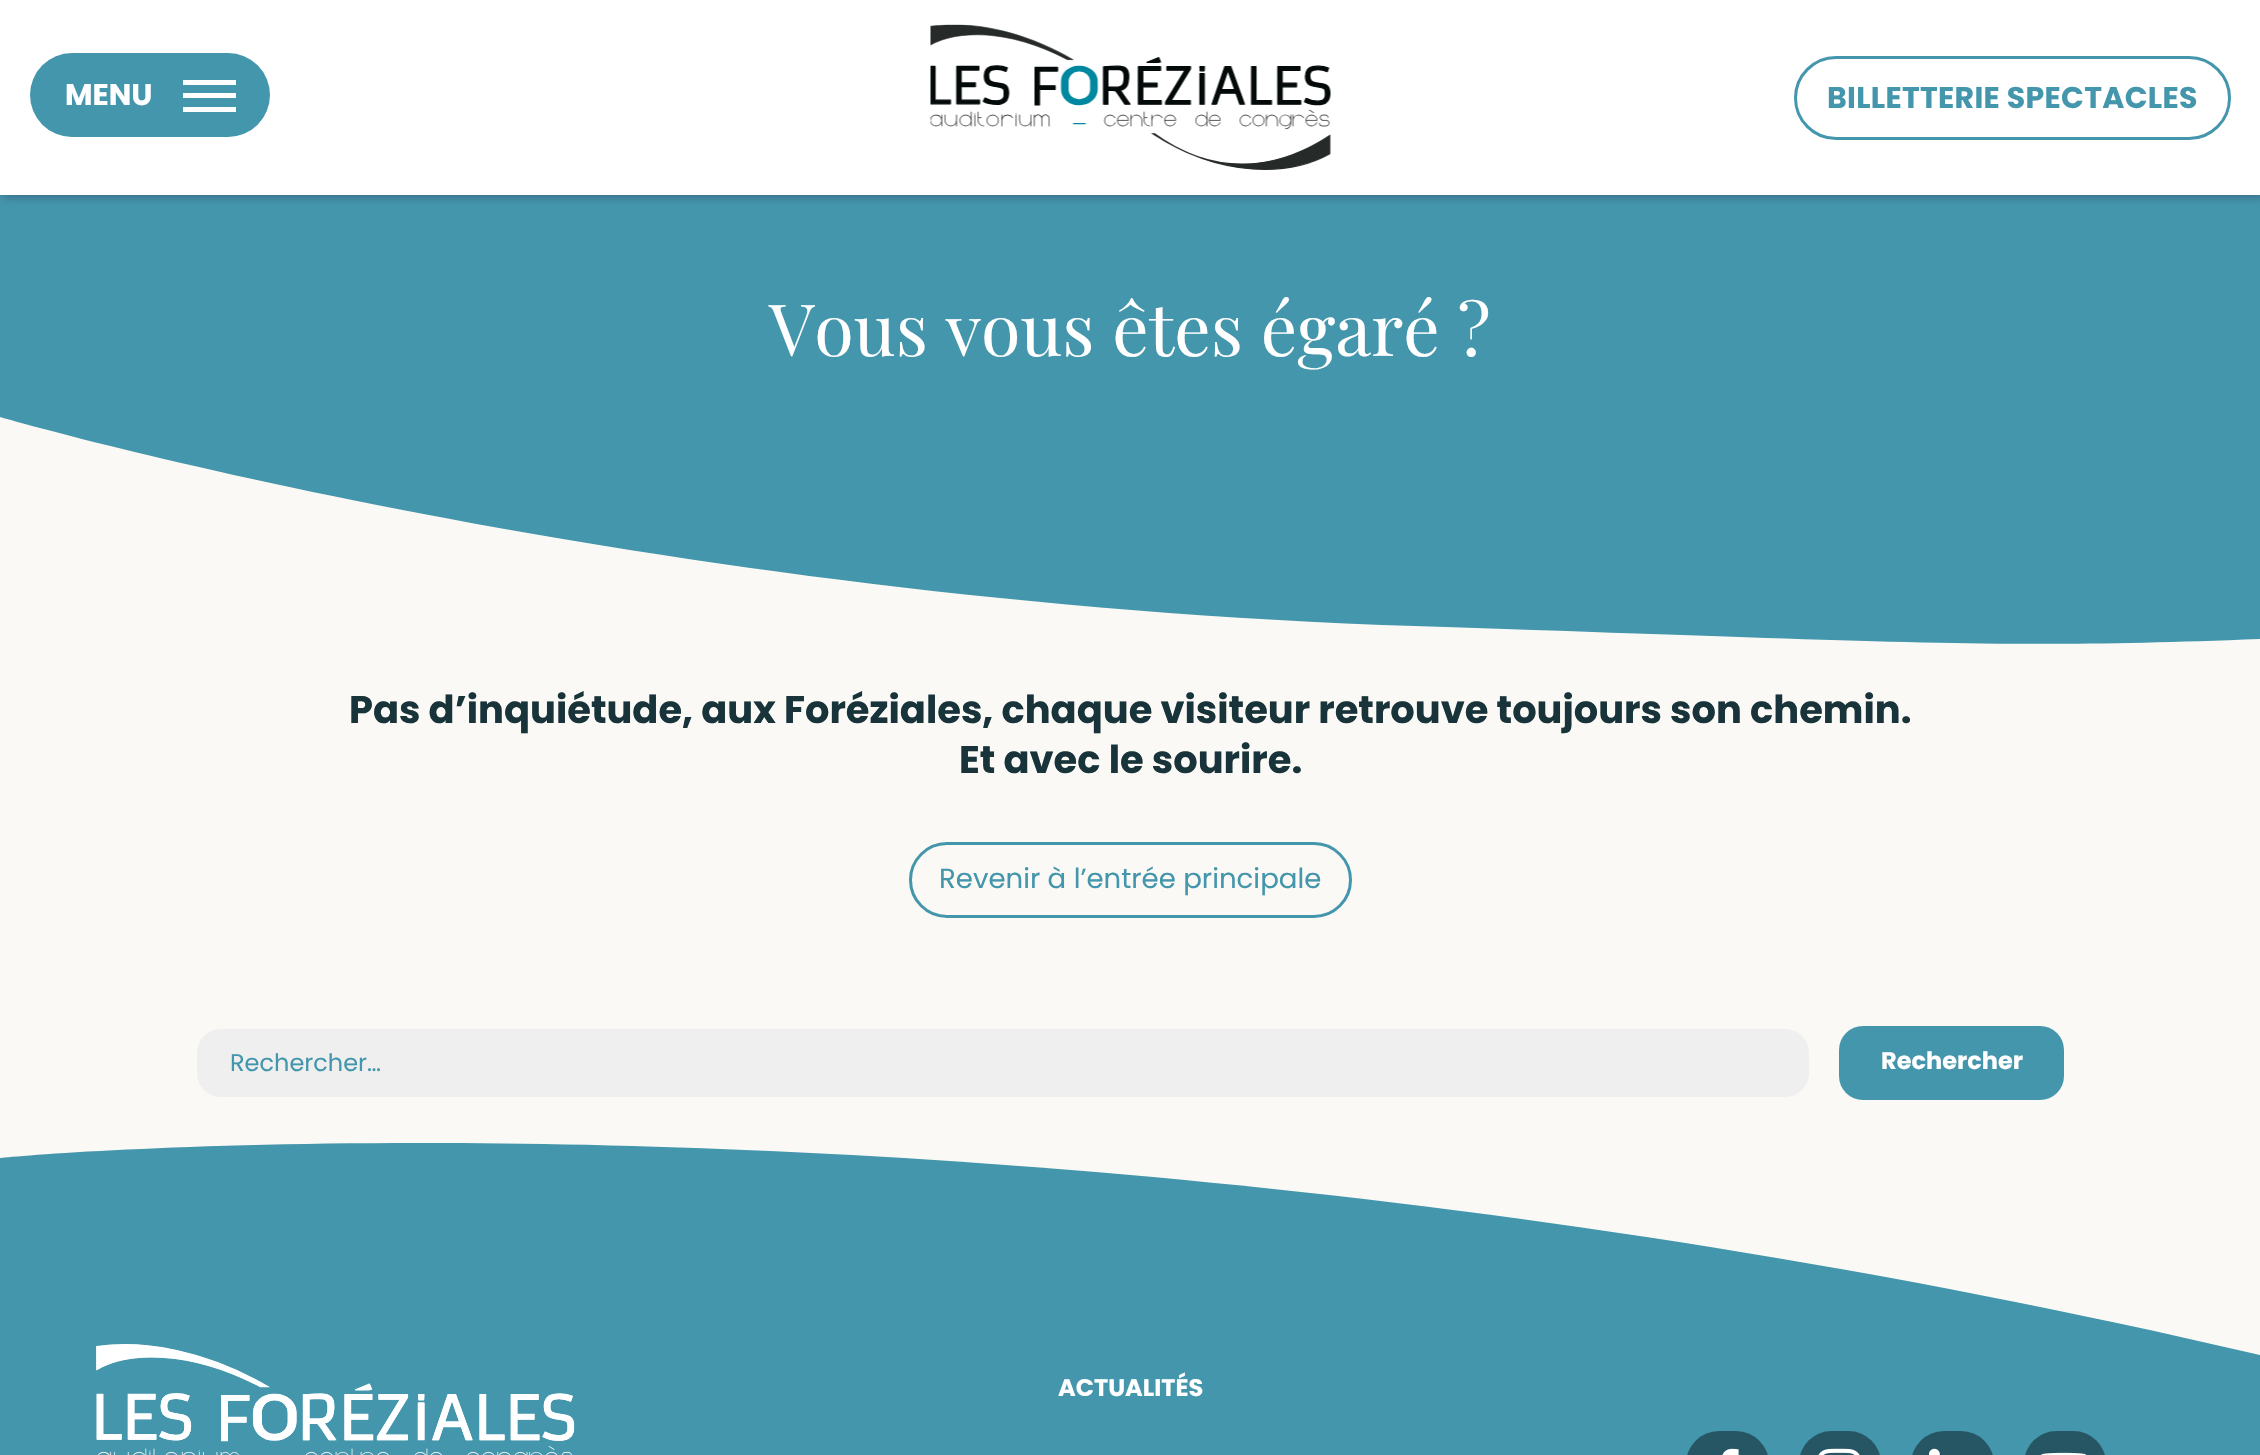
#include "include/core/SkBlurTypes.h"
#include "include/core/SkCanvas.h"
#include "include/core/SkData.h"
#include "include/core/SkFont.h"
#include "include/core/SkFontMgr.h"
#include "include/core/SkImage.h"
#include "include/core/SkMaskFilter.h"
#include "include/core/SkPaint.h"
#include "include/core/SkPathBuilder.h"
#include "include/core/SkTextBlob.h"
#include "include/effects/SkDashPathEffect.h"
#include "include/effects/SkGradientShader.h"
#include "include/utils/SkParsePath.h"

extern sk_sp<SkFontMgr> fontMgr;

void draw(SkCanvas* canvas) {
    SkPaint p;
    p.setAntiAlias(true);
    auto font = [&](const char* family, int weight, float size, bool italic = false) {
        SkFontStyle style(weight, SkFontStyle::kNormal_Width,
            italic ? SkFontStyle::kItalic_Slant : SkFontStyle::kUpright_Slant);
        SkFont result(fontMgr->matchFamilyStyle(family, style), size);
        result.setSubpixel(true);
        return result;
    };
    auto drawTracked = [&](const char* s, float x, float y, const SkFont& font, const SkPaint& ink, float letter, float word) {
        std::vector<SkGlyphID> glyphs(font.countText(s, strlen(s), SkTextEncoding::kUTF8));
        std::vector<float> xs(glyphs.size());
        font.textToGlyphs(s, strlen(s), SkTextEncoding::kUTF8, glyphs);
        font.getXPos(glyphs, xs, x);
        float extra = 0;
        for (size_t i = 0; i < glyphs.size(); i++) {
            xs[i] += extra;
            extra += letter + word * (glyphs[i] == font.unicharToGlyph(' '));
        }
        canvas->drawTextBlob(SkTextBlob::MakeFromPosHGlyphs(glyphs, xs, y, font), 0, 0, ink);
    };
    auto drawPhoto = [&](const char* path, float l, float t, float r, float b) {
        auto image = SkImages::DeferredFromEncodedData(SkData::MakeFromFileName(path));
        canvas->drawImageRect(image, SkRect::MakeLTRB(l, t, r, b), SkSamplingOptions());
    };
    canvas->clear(0xFFFAF9F5);
    p.setColor(0xFF4396AC);
    canvas->drawRect(SkRect::MakeLTRB(0, 195, 2260, 644), p);
    p.setColor(0x802E486A);
    p.setMaskFilter(SkMaskFilter::MakeBlur(kNormal_SkBlurStyle, 4));
    canvas->drawRect(SkRect::MakeLTRB(3, 3, 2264, 198), p);
    p.setMaskFilter(nullptr);
    p.setColor(0xFFFFFFFF);
    canvas->drawRect(SkRect::MakeLTRB(0, 0, 2260, 195), p);
    p.setColor(0xFF4396AC);
    canvas->drawRoundRect(SkRect::MakeLTRB(30, 53, 270, 137), 42, 42, p);
    auto font1 = font("Poppins", 700, 30);
    p.setColor(0xFFFFFFFF);
    canvas->drawString("MENU", 65, 105, font1, p);
    {
        const struct { float l, t, r, b; SkColor color; } items[] = {
            {183, 93, 236, 98, 0xFFFFFFFF},
            {183, 80, 236, 85, 0xFFFFFFFF},
            {183, 107, 236, 112, 0xFFFFFFFF},
        };
        for (auto [l, t, r, b, color] : items) {
            p.setColor(color);
            canvas->drawRect(SkRect::MakeLTRB(l, t, r, b), p);
        }
    }
    drawPhoto("media/1.png", 930, 24, 1331, 170);
    p.setStyle(SkPaint::kStroke_Style);
    p.setStrokeWidth(3);
    p.setColor(0xFF4396AC);
    canvas->drawRoundRect(SkRect::MakeLTRB(1795.5f, 57.5f, 2229.5f, 138.5f), 40.5f, 40.5f, p);
    p.setStyle(SkPaint::kFill_Style);
    drawTracked("BILLETTERIE SPECTACLES", 1827, 108, font1, p, 0.3f, 0);
    auto font2 = font("Playfair Display", 400, 72);
    p.setColor(0xFFFFFFFF);
    canvas->drawString("Vous vous êtes égaré ?", 769, 356, font2, p);
    p.setColor(0xFFFAF9F5);
    canvas->drawPath(SkPathBuilder().moveTo(0, 417).cubicTo(0, 417, 610, 595, 1382, 625).cubicTo(1887, 641, 1984, 650, 2260, 639).lineTo(2260, 689).lineTo(0, 689).close().detach(), p);
    auto font3 = font("Poppins", 700, 38.4f);
    p.setColor(0xFF183339);
    canvas->drawString("Pas d’inquiétude, aux Foréziales, chaque visiteur retrouve toujours son chemin.", 349, 723, font3, p);
    canvas->drawString("Et avec le sourire.", 959, 773, font3, p);
    p.setStyle(SkPaint::kStroke_Style);
    p.setColor(0xFF4396AC);
    canvas->drawRoundRect(SkRect::MakeLTRB(910.5f, 843.5f, 1350.5f, 916.5f), 36.5f, 36.5f, p);
    auto font4 = font("Poppins", 400, 27.6f);
    p.setStyle(SkPaint::kFill_Style);
    canvas->drawString("Revenir à l’entrée principale", 939, 888, font4, p);
    p.setColor(0xFFEFEFEF);
    canvas->drawRoundRect(SkRect::MakeLTRB(197, 1029, 1809, 1097), 24, 24, p);
    auto font5 = font("Poppins", 400, 24);
    p.setColor(0xFF4396AC);
    canvas->drawString("Rechercher…", 230, 1071, font5, p);
    canvas->drawRoundRect(SkRect::MakeLTRB(1839, 1026, 2064, 1100), 24, 24, p);
    auto font6 = font("Poppins", 700, 24);
    p.setColor(0xFFFFFFFF);
    canvas->drawString("Rechercher", 1881, 1069, font6, p);
    p.setColor(0xFF4396AC);
    canvas->drawRect(SkRect::MakeLTRB(0, 1374, 2260, 1455), p);
    canvas->drawPath(SkPathBuilder().moveTo(0, 1158).cubicTo(7, 1156, 1023, 1065, 2260, 1355).lineTo(2260, 1374).lineTo(0, 1374).close().detach(), p);
    drawPhoto("media/2.png", 96, 1344, 575, 1455);
    p.setColor(0xFFFFFFFF);
    canvas->drawString("ACTUALITÉS", 1058, 1396, font6, p);
    p.setColor(0xFF265663);
    canvas->drawRoundRect(SkRect::MakeLTRB(1686, 1431, 1769, 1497), 41.5f, 41.5f, p);
    drawPhoto("media/3.png", 1722, 1448, 1739, 1455);
    canvas->drawRoundRect(SkRect::MakeLTRB(1799, 1431, 1881, 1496), 41, 41, p);
    drawPhoto("media/4.png", 1818, 1448, 1860, 1455);
    canvas->drawRoundRect(SkRect::MakeLTRB(1911, 1431, 1994, 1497), 41.5f, 41.5f, p);
    drawPhoto("media/5.png", 1929, 1448, 1940, 1455);
    canvas->drawRoundRect(SkRect::MakeLTRB(2024, 1431, 2106, 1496), 41, 41, p);
    drawPhoto("media/6.png", 2040, 1452, 2087, 1455);
}
